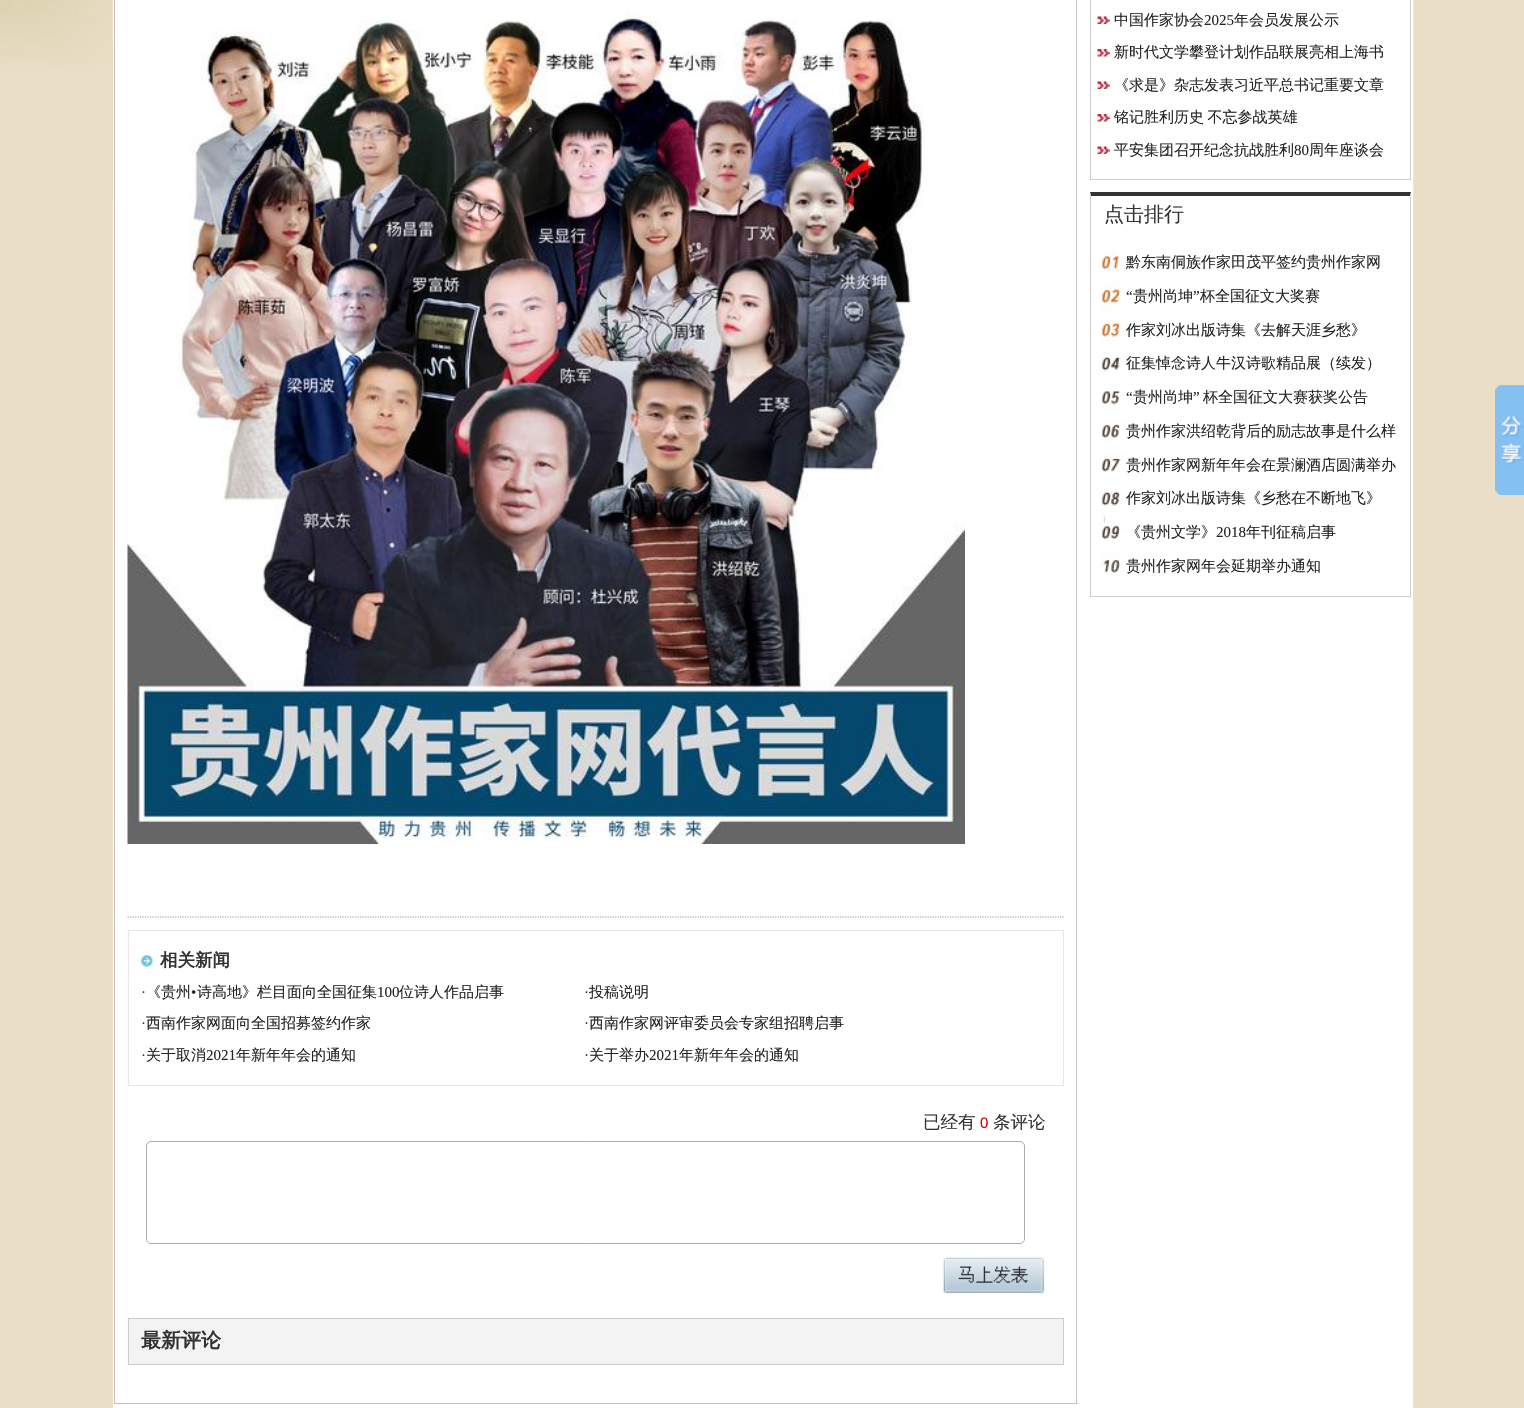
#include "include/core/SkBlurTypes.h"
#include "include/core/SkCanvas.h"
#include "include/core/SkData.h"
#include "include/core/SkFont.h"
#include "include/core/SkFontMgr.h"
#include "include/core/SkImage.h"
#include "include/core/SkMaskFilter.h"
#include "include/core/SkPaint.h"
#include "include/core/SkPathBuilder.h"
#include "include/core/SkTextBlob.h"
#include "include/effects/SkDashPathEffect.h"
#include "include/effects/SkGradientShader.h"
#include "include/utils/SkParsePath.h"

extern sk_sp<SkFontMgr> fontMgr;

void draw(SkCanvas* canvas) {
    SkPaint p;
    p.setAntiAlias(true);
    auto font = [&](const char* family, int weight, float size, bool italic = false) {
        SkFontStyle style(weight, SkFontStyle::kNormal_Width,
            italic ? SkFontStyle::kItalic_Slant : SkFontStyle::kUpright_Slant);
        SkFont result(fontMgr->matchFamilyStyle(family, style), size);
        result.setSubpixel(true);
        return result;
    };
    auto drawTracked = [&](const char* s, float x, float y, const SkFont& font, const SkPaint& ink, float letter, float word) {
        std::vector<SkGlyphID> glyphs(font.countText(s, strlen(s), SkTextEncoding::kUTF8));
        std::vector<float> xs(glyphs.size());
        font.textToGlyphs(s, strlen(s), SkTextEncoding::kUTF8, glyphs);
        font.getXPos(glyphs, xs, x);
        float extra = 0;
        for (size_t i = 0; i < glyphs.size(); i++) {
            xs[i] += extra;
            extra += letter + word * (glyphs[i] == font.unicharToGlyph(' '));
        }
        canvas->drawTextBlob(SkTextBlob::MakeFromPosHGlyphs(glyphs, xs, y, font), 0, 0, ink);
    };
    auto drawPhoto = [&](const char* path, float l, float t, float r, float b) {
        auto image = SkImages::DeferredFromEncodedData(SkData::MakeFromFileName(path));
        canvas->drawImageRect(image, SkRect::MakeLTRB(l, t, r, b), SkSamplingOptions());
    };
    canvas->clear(0xFFEADEC6);
    drawPhoto("media/1.png", 0, 0, 1414, 201);
    p.setColor(0xFFFFFFFF);
    canvas->drawRect(SkRect::MakeLTRB(113, 0, 1413, 1408), p);
    p.setColor(0xFFCCCCCC);
    canvas->drawPath(SkPathBuilder().moveTo(1411, -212).lineTo(1411, 180).lineTo(1410, 179).lineTo(1410, -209).close().detach(), p);
    canvas->drawRect(SkRect::MakeLTRB(1090, 179, 1411, 180), p);
    canvas->drawPath(SkPathBuilder().moveTo(1090, 180).lineTo(1090, -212).lineTo(1091, -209).lineTo(1091, 179).close().detach(), p);
    drawPhoto("media/2.png", 1097, 16, 1110, 24);
    auto font1 = font("WenQuanYi Zen Hei", 500, 15);
    p.setColor(0xFF252525);
    canvas->drawString("中国作家协会", 1114, 25, font1, p);
    auto font2 = font("Liberation Serif", 400, 15);
    canvas->drawString("2025", 1204, 25, font2, p);
    canvas->drawString("年会员发展公示", 1234, 25, font1, p);
    drawPhoto("media/3.png", 1097, 49, 1110, 57);
    canvas->drawString("新时代文学攀登计划作品联展亮相上海书", 1114, 57, font1, p);
    drawPhoto("media/2.png", 1097, 81, 1110, 89);
    canvas->drawString("《求是》杂志发表习近平总书记重要文章", 1114, 90, font1, p);
    drawPhoto("media/3.png", 1097, 114, 1110, 122);
    drawTracked("铭记胜利历史 不忘参战英雄", 1114, 122, font1, p, 0, -1);
    drawPhoto("media/2.png", 1097, 146, 1110, 154);
    canvas->drawString("平安集团召开纪念抗战胜利", 1114, 155, font1, p);
    canvas->drawString("80", 1294, 155, font2, p);
    canvas->drawString("周年座谈会", 1309, 155, font1, p);
    p.setColor(0xFF333333);
    canvas->drawPath(SkPathBuilder().moveTo(1090, 192).lineTo(1411, 192).lineTo(1410, 196).lineTo(1091, 196).close().detach(), p);
    p.setColor(0xFFCCCCCC);
    canvas->drawPath(SkPathBuilder().moveTo(1411, 192).lineTo(1411, 598).lineTo(1410, 596).lineTo(1410, 196).close().detach(), p);
    canvas->drawRect(SkRect::MakeLTRB(1090, 596, 1411, 597), p);
    canvas->drawPath(SkPathBuilder().moveTo(1090, 598).lineTo(1090, 192).lineTo(1091, 196).lineTo(1091, 596).close().detach(), p);
    auto font3 = font("WenQuanYi Zen Hei", 500, 20);
    p.setColor(0xFF333333);
    canvas->drawString("点击排行", 1104, 221, font3, p);
    drawPhoto("media/4.png", 1101, 251, 1129, 574);
    p.setColor(0xFF252525);
    canvas->drawString("黔东南侗族作家田茂平签约贵州作家网", 1126, 267, font1, p);
    canvas->drawString("“", 1126, 301, font2, p);
    canvas->drawString("贵州尚坤", 1133, 301, font1, p);
    canvas->drawString("”", 1193, 301, font2, p);
    {
        const struct { const char* s; float x, y; } items[] = {
            {"杯全国征文大奖赛", 1200, 301},
            {"作家刘冰出版诗集《去解天涯乡愁》", 1126, 335},
            {"征集悼念诗人牛汉诗歌精品展（续发）", 1126, 368},
        };
        for (auto [s, x, y] : items) {
            canvas->drawString(s, x, y, font1, p);
        }
    }
    canvas->drawString("“", 1126, 402, font2, p);
    canvas->drawString("贵州尚坤", 1133, 402, font1, p);
    canvas->drawString("”", 1193, 402, font2, p);
    {
        const struct { const char* s; float x, y; } items[] = {
            {"杯全国征文大赛获奖公告", 1203, 402},
            {"贵州作家洪绍乾背后的励志故事是什么样", 1126, 436},
            {"贵州作家网新年年会在景澜酒店圆满举办", 1126, 470},
            {"作家刘冰出版诗集《乡愁在不断地飞》", 1126, 503},
            {"《贵州文学》", 1126, 537},
        };
        for (auto [s, x, y] : items) {
            canvas->drawString(s, x, y, font1, p);
        }
    }
    canvas->drawString("2018", 1216, 537, font2, p);
    canvas->drawString("年刊征稿启事", 1246, 537, font1, p);
    canvas->drawString("贵州作家网年会延期举办通知", 1126, 571, font1, p);
    {
        const struct { float l, t, r, b; SkColor color; } items[] = {
            {1076, 0, 1077, 1404, 0xFFC4C4C4},
            {114, 1403, 1078, 1404, 0xFFC4C4C4},
            {114, 0, 115, 1404, 0xFFC4C4C4},
        };
        for (auto [l, t, r, b, color] : items) {
            p.setColor(color);
            canvas->drawRect(SkRect::MakeLTRB(l, t, r, b), p);
        }
    }
    drawPhoto("media/5.png", 127, 10, 965, 844);
    p.setStyle(SkPaint::kStroke_Style);
    p.setStrokeWidth(1.2f);
    p.setColor(0xFF999999);
    p.setPathEffect(SkDashPathEffect::Make({{1.25f, 1.25f}}, 0));
    canvas->drawPath(SkPathBuilder().moveTo(127.5f, 917).lineTo(1064, 917).detach(), p);
    p.setPathEffect(nullptr);
    p.setStrokeWidth(1);
    p.setColor(0xFFE7E7E7);
    canvas->drawRect(SkRect::MakeLTRB(128.5f, 930.5f, 1063.5f, 1085.5f), p);
    drawPhoto("media/6.png", 141, 955, 153, 967);
    auto font4 = font("WenQuanYi Zen Hei", 700, 17.5f);
    p.setStyle(SkPaint::kFill_Style);
    p.setColor(0xFF333333);
    canvas->drawString("相关新闻", 160, 966, font4, p);
    canvas->drawString("·", 141, 997, font2, p);
    p.setColor(0xFF252525);
    canvas->drawString("《贵州", 146, 997, font1, p);
    canvas->drawString("•", 191, 997, font2, p);
    canvas->drawString("诗高地》栏目面向全国征集", 197, 997, font1, p);
    canvas->drawString("100", 377, 997, font2, p);
    canvas->drawString("位诗人作品启事", 399, 997, font1, p);
    p.setColor(0xFF333333);
    canvas->drawString("·", 584, 997, font2, p);
    p.setColor(0xFF252525);
    canvas->drawString("投稿说明", 589, 997, font1, p);
    p.setColor(0xFF333333);
    canvas->drawString("·", 141, 1028, font2, p);
    p.setColor(0xFF252525);
    canvas->drawString("西南作家网面向全国招募签约作家", 146, 1028, font1, p);
    p.setColor(0xFF333333);
    canvas->drawString("·", 584, 1028, font2, p);
    p.setColor(0xFF252525);
    canvas->drawString("西南作家网评审委员会专家组招聘启事", 589, 1028, font1, p);
    p.setColor(0xFF333333);
    canvas->drawString("·", 141, 1060, font2, p);
    p.setColor(0xFF252525);
    canvas->drawString("关于取消", 146, 1060, font1, p);
    canvas->drawString("2021", 206, 1060, font2, p);
    canvas->drawString("年新年年会的通知", 236, 1060, font1, p);
    p.setColor(0xFF333333);
    canvas->drawString("·", 584, 1060, font2, p);
    p.setColor(0xFF252525);
    canvas->drawString("关于举办", 589, 1060, font1, p);
    canvas->drawString("2021", 649, 1060, font2, p);
    canvas->drawString("年新年年会的通知", 679, 1060, font1, p);
    auto font5 = font("WenQuanYi Zen Hei", 500, 17.5f);
    p.setColor(0xFF333333);
    canvas->drawString("已经有", 923, 1128, font5, p);
    auto font6 = font("Liberation Sans", 400, 15);
    p.setColor(0xFFD10000);
    canvas->drawString("0", 980, 1128, font6, p);
    p.setColor(0xFF333333);
    canvas->drawString("条评论", 993, 1128, font5, p);
    p.setStyle(SkPaint::kStroke_Style);
    p.setColor(0xFFABABAB);
    canvas->drawRoundRect(SkRect::MakeLTRB(146.5f, 1141.5f, 1024.5f, 1243.5f), 4.5f, 4.5f, p);
    drawPhoto("media/7.png", 942, 1256, 1045, 1294);
    p.setStyle(SkPaint::kFill_Style);
    p.setColor(0xFFF3F3F3);
    canvas->drawRect(SkRect::MakeLTRB(128.5f, 1318.5f, 1063.5f, 1364.5f), p);
    p.setStyle(SkPaint::kStroke_Style);
    p.setColor(0xFFCCCCCC);
    canvas->drawRect(SkRect::MakeLTRB(128.5f, 1318.5f, 1063.5f, 1364.5f), p);
    auto font7 = font("WenQuanYi Zen Hei", 700, 20);
    p.setStyle(SkPaint::kFill_Style);
    p.setColor(0xFF333333);
    canvas->drawString("最新评论", 141, 1347, font7, p);
    drawPhoto("media/8.png", 1495, 384, 1524, 495);
}
